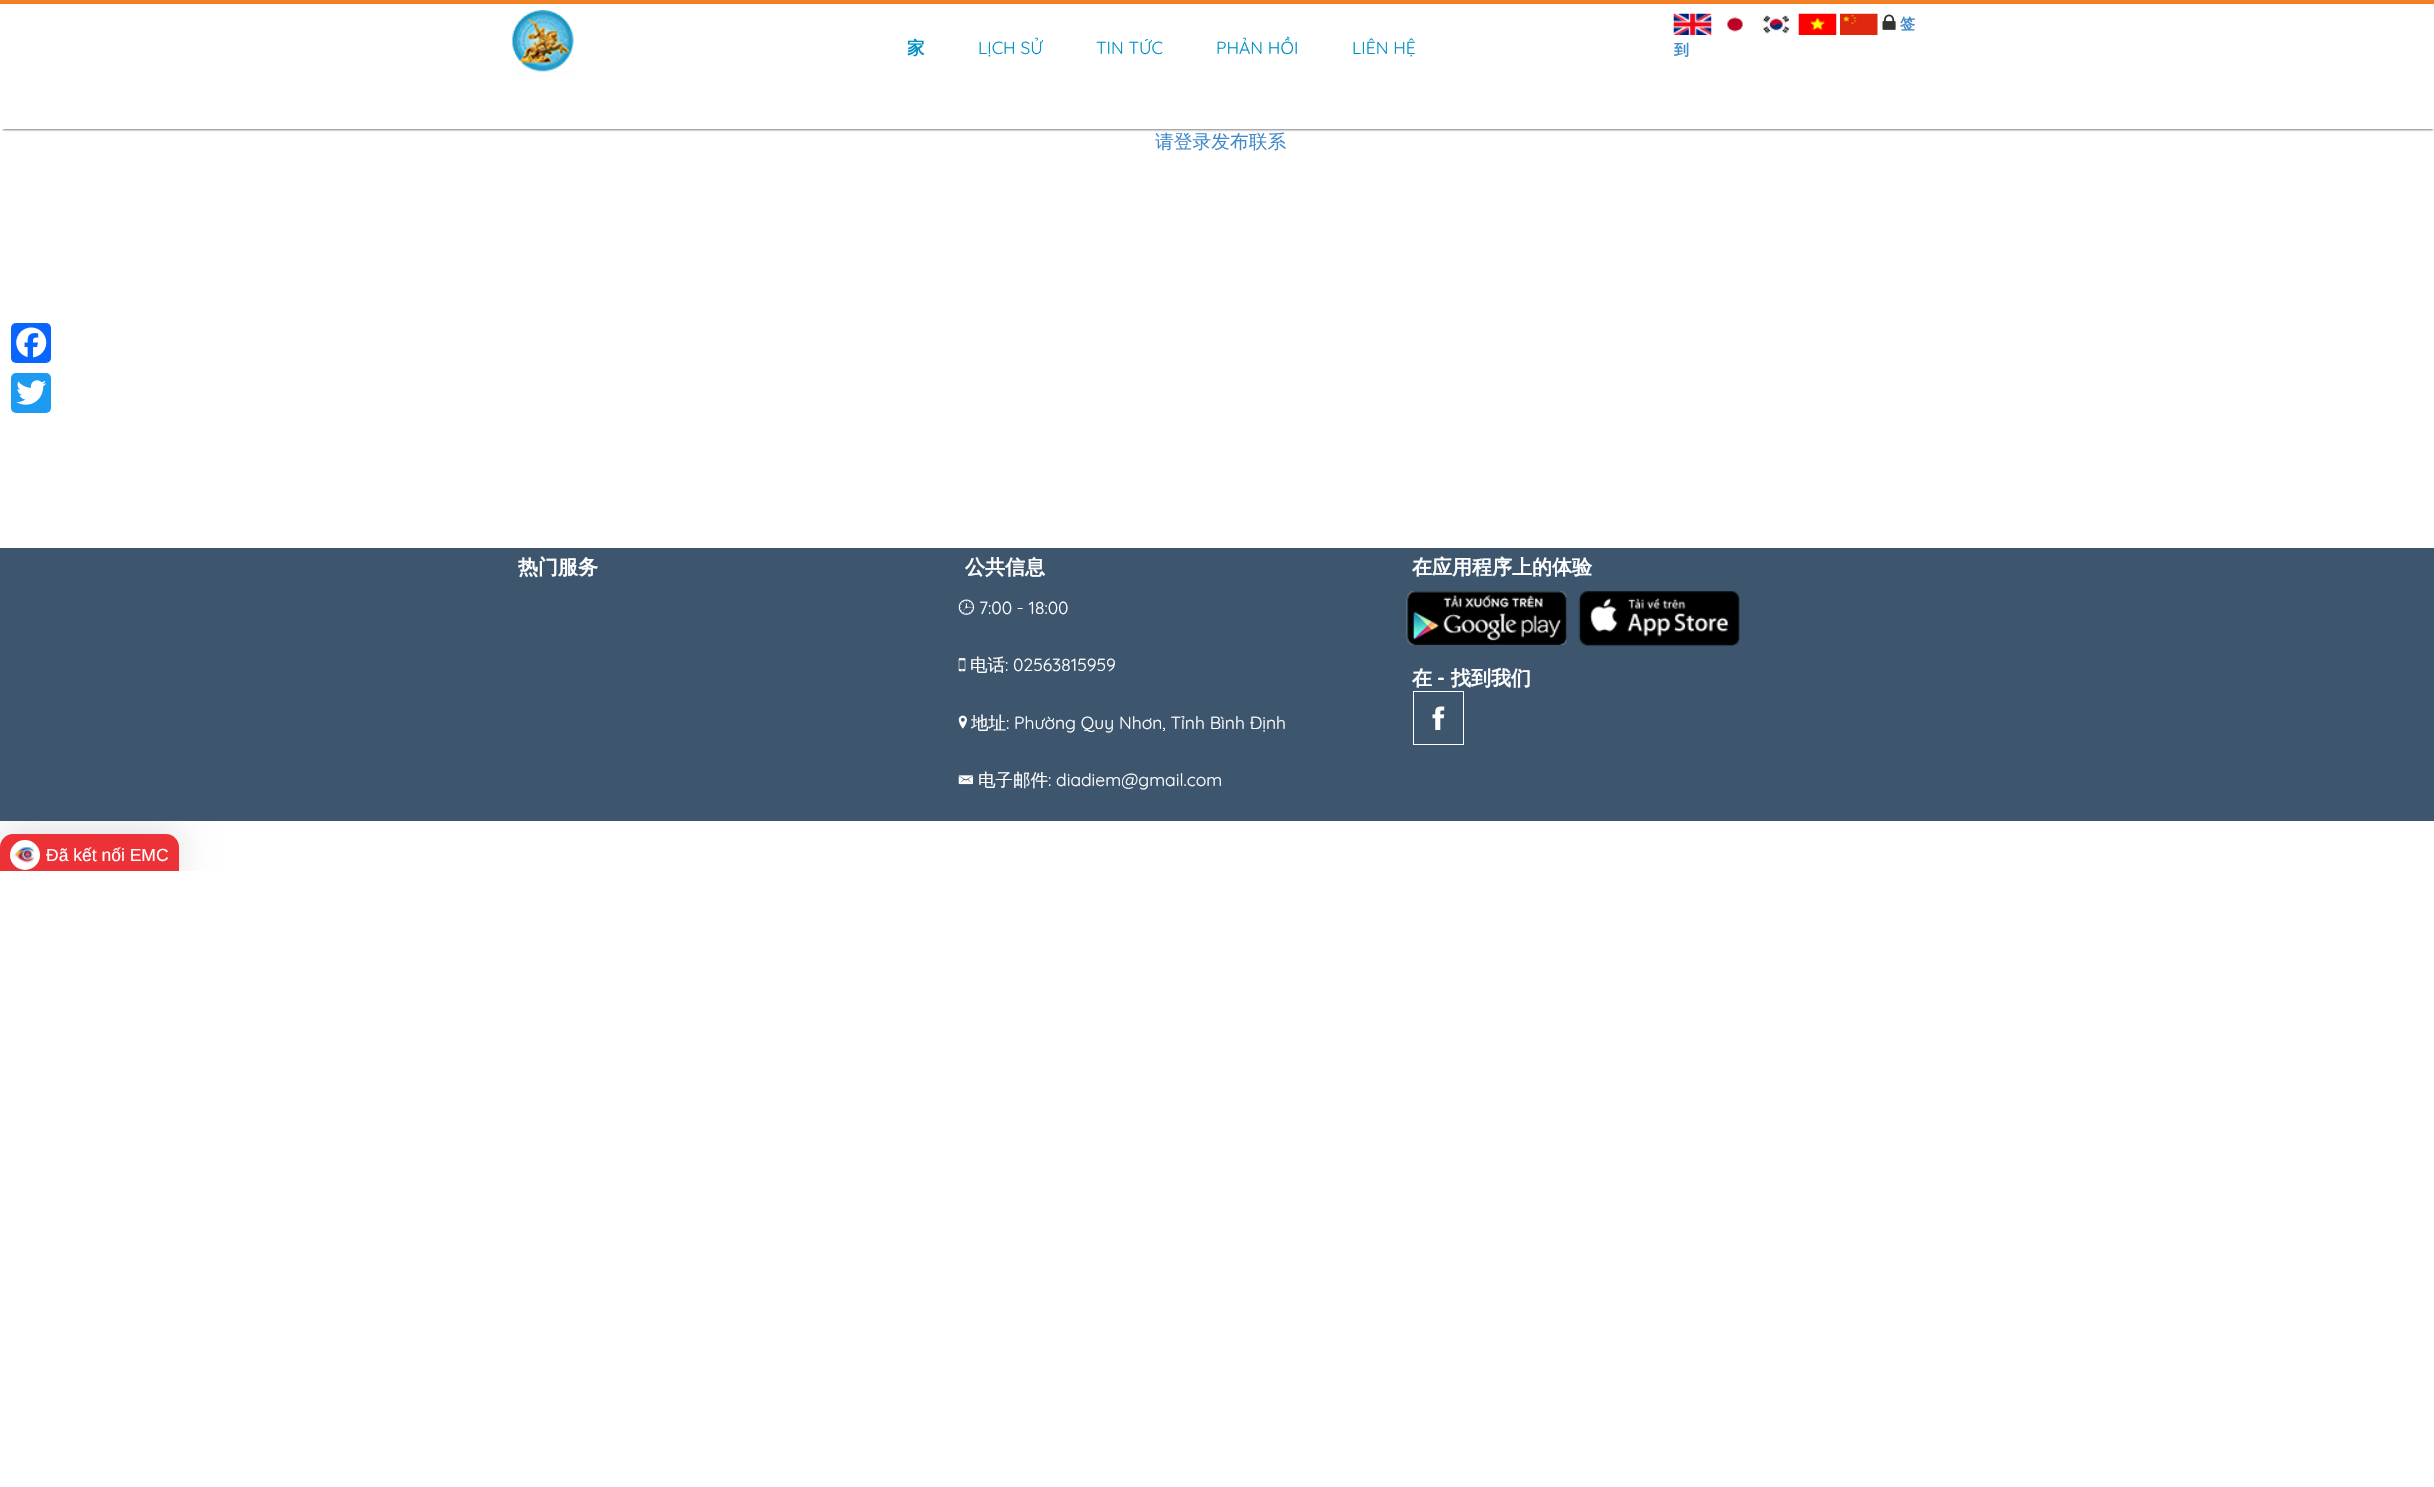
#include "include/core/SkBlurTypes.h"
#include "include/core/SkCanvas.h"
#include "include/core/SkData.h"
#include "include/core/SkFont.h"
#include "include/core/SkFontMgr.h"
#include "include/core/SkImage.h"
#include "include/core/SkMaskFilter.h"
#include "include/core/SkPaint.h"
#include "include/core/SkPathBuilder.h"
#include "include/core/SkTextBlob.h"
#include "include/effects/SkDashPathEffect.h"
#include "include/effects/SkGradientShader.h"
#include "include/utils/SkParsePath.h"

extern sk_sp<SkFontMgr> fontMgr;

void draw(SkCanvas* canvas) {
    SkPaint p;
    p.setAntiAlias(true);
    auto font = [&](const char* family, int weight, float size, bool italic = false) {
        SkFontStyle style(weight, SkFontStyle::kNormal_Width,
            italic ? SkFontStyle::kItalic_Slant : SkFontStyle::kUpright_Slant);
        SkFont result(fontMgr->matchFamilyStyle(family, style), size);
        result.setSubpixel(true);
        return result;
    };
    auto drawPhoto = [&](const char* path, float l, float t, float r, float b) {
        auto image = SkImages::DeferredFromEncodedData(SkData::MakeFromFileName(path));
        canvas->drawImageRect(image, SkRect::MakeLTRB(l, t, r, b), SkSamplingOptions());
    };
    canvas->clear(0xFFFFFFFF);
    canvas->save();
    canvas->clipPath(SkPathBuilder(SkPathFillType::kEvenOdd).moveTo(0, 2).lineTo(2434, 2).lineTo(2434, 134).lineTo(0, 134).close().moveTo(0, 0).lineTo(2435, 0).lineTo(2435, 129).lineTo(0, 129).close().detach(), true);
    p.setColor(0xFF808080);
    p.setMaskFilter(SkMaskFilter::MakeBlur(kNormal_SkBlurStyle, 1));
    canvas->drawRect(SkRect::MakeLTRB(3, 6, 2433, 130), p);
    p.setMaskFilter(nullptr);
    canvas->restore();
    p.setColor(0xFFF48024);
    canvas->drawRect(SkRect::MakeLTRB(0, 0, 2434, 4), p);
    drawPhoto("media/1.png", 512, 10, 574, 73);
    auto font1 = font("WenQuanYi Zen Hei", 700, 17.5f);
    p.setColor(0xFF0090C4);
    canvas->drawString("家", 907, 54, font1, p);
    auto font2 = font("Quicksand", 400, 17.5f);
    {
        const struct { const char* s; float x, y; } items[] = {
            {"LỊCH SỬ", 978, 54},
            {"TIN TỨC", 1096, 54},
            {"PHẢN HỒI", 1216, 54},
            {"LIÊN HỆ", 1352, 54},
        };
        for (auto [s, x, y] : items) {
            canvas->drawString(s, x, y, font2, p);
        }
    }
    drawPhoto("media/2.png", 1673, 13, 1712, 35);
    drawPhoto("media/3.png", 1762, 15, 1790, 34);
    drawPhoto("media/4.png", 1798, 13, 1837, 35);
    drawPhoto("media/5.png", 1840, 13, 1878, 35);
    drawPhoto("media/6.png", 1882, 14, 1896, 30);
    auto font3 = font("WenQuanYi Zen Hei", 700, 15);
    p.setColor(0xFF428BCA);
    canvas->drawString("签", 1900, 29, font3, p);
    canvas->drawString("到", 1674, 55, font3, p);
    drawPhoto("media/7.png", 1727, 17, 1743, 32);
    auto font4 = font("WenQuanYi Zen Hei", 500, 18.75f);
    canvas->drawString("请登录发布联系", 1155, 148, font4, p);
    p.setColor(0xFF0866FF);
    canvas->drawRoundRect(SkRect::MakeLTRB(11, 323, 51, 363), 5, 5, p);
    drawPhoto("media/8.png", 16, 327, 47, 358);
    p.setColor(0xFF1D9BF0);
    canvas->drawRoundRect(SkRect::MakeLTRB(11, 373, 51, 413), 5, 5, p);
    drawPhoto("media/9.png", 16, 380, 47, 405);
    p.setColor(0xFF3D566E);
    canvas->drawRect(SkRect::MakeLTRB(0, 548, 2434, 821), p);
    auto font5 = font("WenQuanYi Zen Hei", 700, 20);
    p.setColor(0xFFFFFFFF);
    canvas->drawString("热门服务", 518, 574, font5, p);
    canvas->drawString("公共信息", 965, 574, font5, p);
    drawPhoto("media/10.png", 958, 599, 975, 615);
    canvas->drawString("7:00 - 18:00", 979, 614, font2, p);
    drawPhoto("media/11.png", 958, 658, 966, 672);
    auto font6 = font("WenQuanYi Zen Hei", 500, 17.5f);
    canvas->drawString("电话", 970, 671, font6, p);
    canvas->drawString(": 02563815959", 1005, 671, font2, p);
    drawPhoto("media/12.png", 958, 715, 967, 729);
    canvas->drawString("地址", 971, 729, font6, p);
    canvas->drawString(": Phường Quy Nhơn, Tỉnh Bình Định", 1006, 729, font2, p);
    drawPhoto("media/13.png", 958, 775, 973, 785);
    canvas->drawString("电子邮件", 978, 786, font6, p);
    canvas->drawString(": diadiem@gmail.com", 1048, 786, font2, p);
    canvas->drawString("在应用程序上的体验", 1412, 574, font5, p);
    drawPhoto("media/14.png", 1406, 591, 1567, 645);
    drawPhoto("media/15.png", 1578, 591, 1740, 647);
    canvas->drawString("在", 1412, 685, font5, p);
    auto font7 = font("Quicksand", 700, 20);
    canvas->drawString("-", 1437, 685, font7, p);
    canvas->drawString("找到我们", 1451, 685, font5, p);
    p.setStyle(SkPaint::kStroke_Style);
    p.setStrokeWidth(1);
    canvas->drawRect(SkRect::MakeLTRB(1413.5f, 691.5f, 1463.5f, 744.5f), p);
    drawPhoto("media/16.png", 1432, 706, 1445, 730);
    canvas->save();
    canvas->clipRect(SkRect::MakeLTRB(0, 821, 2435, 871));
    p.setStyle(SkPaint::kFill_Style);
    p.setColor(0x26000000);
    p.setMaskFilter(SkMaskFilter::MakeBlur(kNormal_SkBlurStyle, 19));
    canvas->drawRoundRect(SkRect::MakeLTRB(0, 833, 179, 875), 13, 13, p);
    p.setMaskFilter(nullptr);
    canvas->restore();
    p.setColor(0xFFEC3237);
    canvas->drawPath(SkPathBuilder().moveTo(13, 834).lineTo(166, 834).cubicTo(173, 834, 179, 840, 179, 847).lineTo(179, 871).lineTo(0, 871).lineTo(0, 847).cubicTo(0, 840, 6, 834, 13, 834).close().detach(), p);
    p.setColor(0xFFFFFFFF);
    canvas->drawCircle(25, 855, 15, p);
    drawPhoto("media/17.png", 15, 847, 35, 863);
    auto font8 = font("Liberation Sans", 400, 17.5f);
    canvas->drawString("Đã kết nối EMC", 46, 861, font8, p);
}
